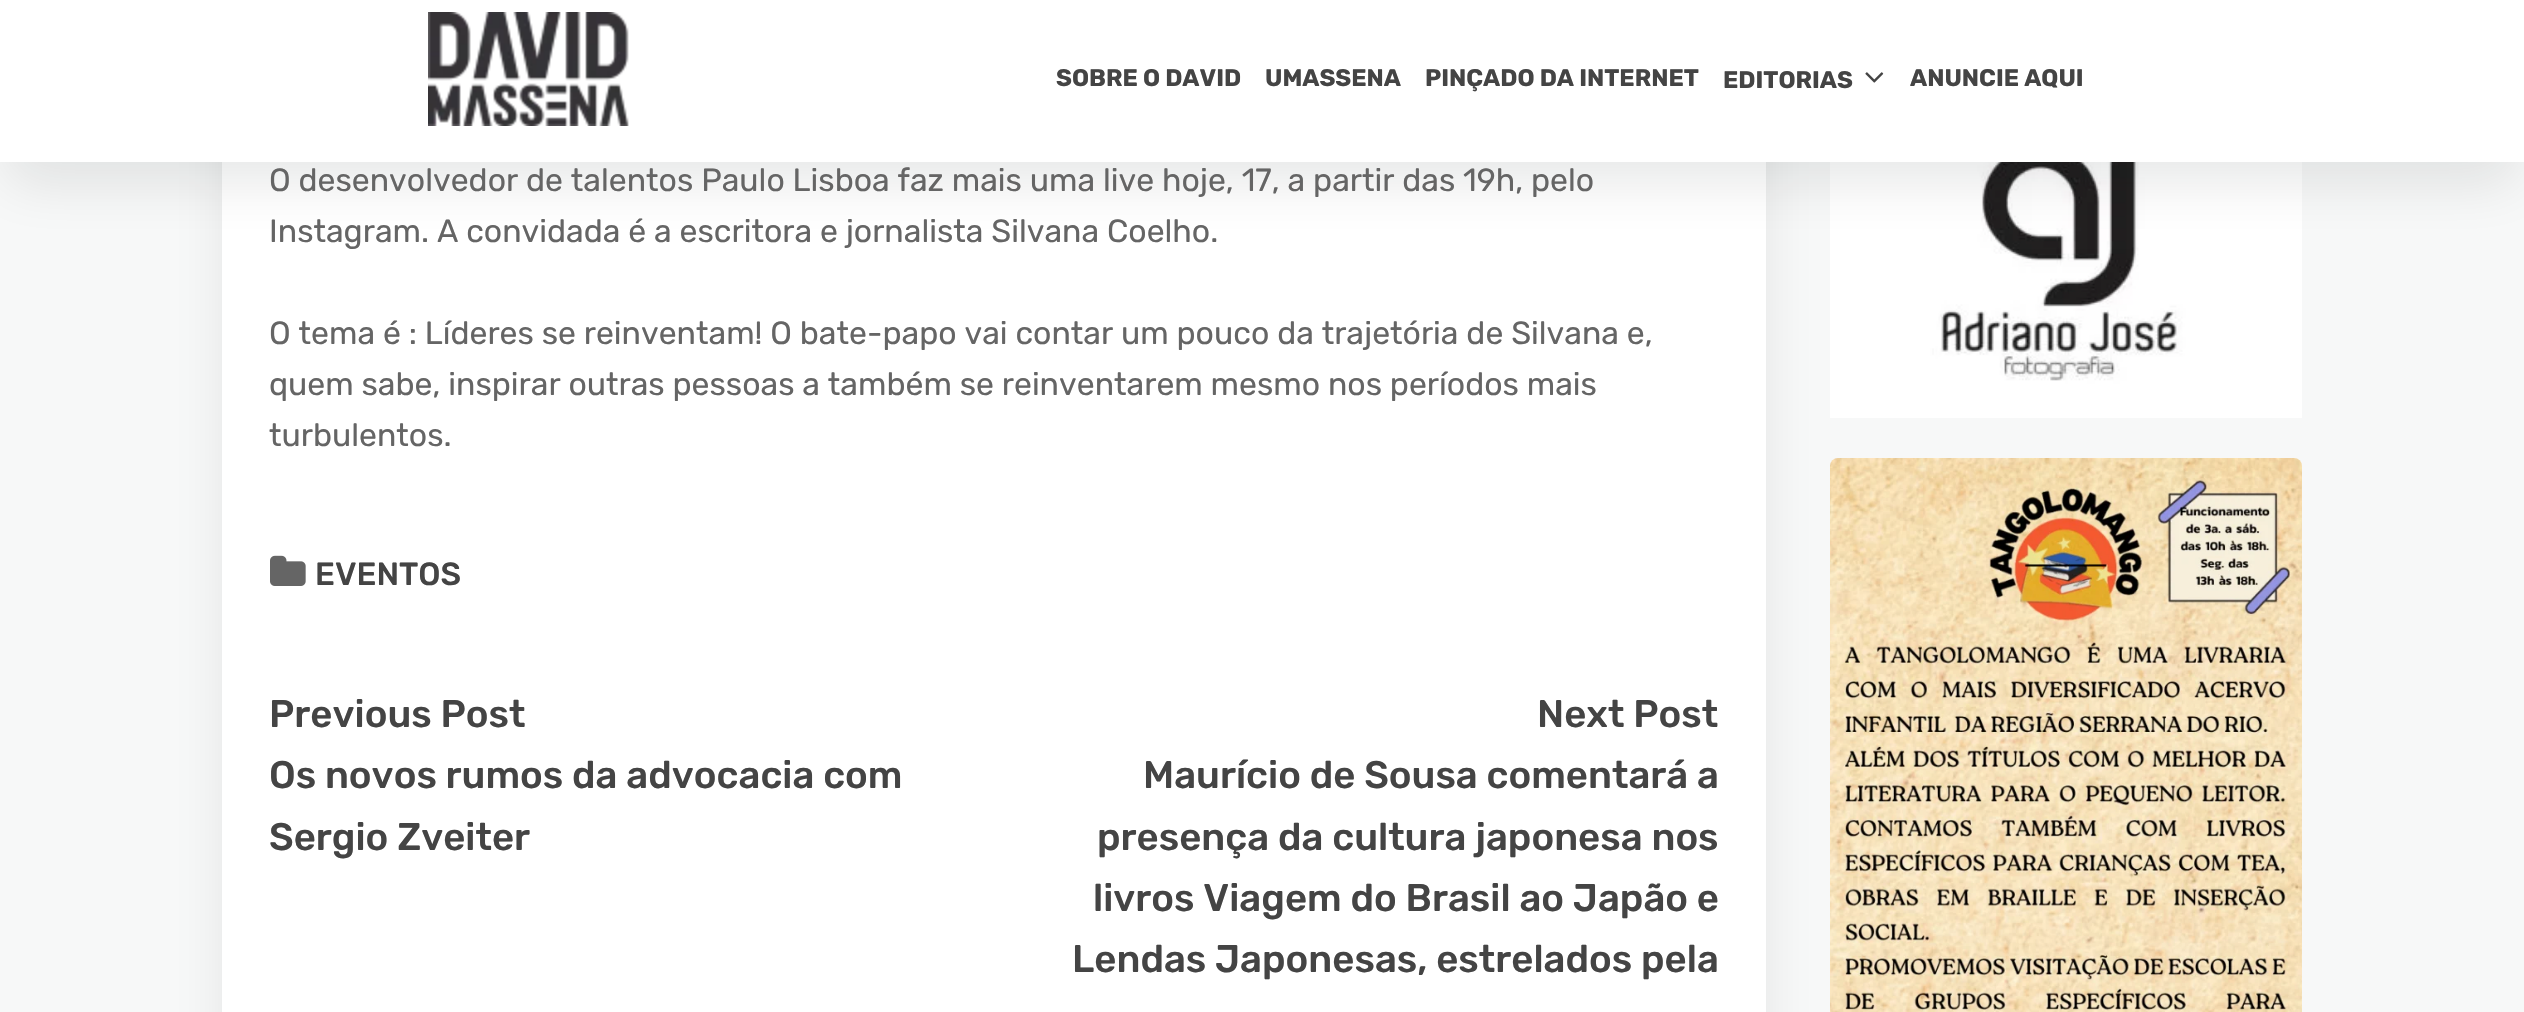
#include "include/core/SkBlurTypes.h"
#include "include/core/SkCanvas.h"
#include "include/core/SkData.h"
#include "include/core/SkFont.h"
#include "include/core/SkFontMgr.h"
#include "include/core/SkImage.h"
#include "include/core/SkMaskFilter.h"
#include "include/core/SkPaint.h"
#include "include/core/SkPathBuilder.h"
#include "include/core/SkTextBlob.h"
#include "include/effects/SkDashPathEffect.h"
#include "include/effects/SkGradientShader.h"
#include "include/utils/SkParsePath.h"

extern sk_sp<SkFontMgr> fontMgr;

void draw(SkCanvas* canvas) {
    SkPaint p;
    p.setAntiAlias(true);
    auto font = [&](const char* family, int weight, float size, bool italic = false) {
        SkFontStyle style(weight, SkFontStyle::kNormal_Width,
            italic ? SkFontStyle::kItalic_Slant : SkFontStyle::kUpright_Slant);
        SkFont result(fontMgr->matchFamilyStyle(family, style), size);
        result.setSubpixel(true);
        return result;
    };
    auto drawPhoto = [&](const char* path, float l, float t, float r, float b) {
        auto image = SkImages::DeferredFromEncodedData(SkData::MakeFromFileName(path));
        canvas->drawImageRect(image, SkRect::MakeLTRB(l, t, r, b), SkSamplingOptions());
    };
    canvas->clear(0xFFF7F8F8);
    drawPhoto("media/4.png", 1830, 162, 2302, 418);
    p.setColor(0x1A0E1114);
    p.setMaskFilter(SkMaskFilter::MakeBlur(kNormal_SkBlurStyle, 28));
    canvas->drawRect(SkRect::MakeLTRB(230, -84, 1758, 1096), p);
    p.setMaskFilter(nullptr);
    p.setColor(0xFFFFFFFF);
    canvas->drawRect(SkRect::MakeLTRB(222, 162, 1766, 1012), p);
    p.setColor(0x1A0E1114);
    p.setMaskFilter(SkMaskFilter::MakeBlur(kNormal_SkBlurStyle, 28));
    canvas->drawRect(SkRect::MakeLTRB(8, 36, 2516, 182), p);
    p.setMaskFilter(nullptr);
    p.setColor(0xFFFFFFFF);
    canvas->drawRect(SkRect::MakeLTRB(0, 0, 2524, 162), p);
    drawPhoto("media/1.png", 428, 12, 629, 126);
    auto font1 = font("Rubik", 700, 24);
    p.setColor(0xFF444444);
    {
        const struct { const char* s; float x, y; } items[] = {
            {"SOBRE O DAVID", 1056, 86},
            {"UMASSENA", 1265, 86},
            {"PINÇADO DA INTERNET", 1425, 86},
            {"EDITORIAS", 1723, 88},
        };
        for (auto [s, x, y] : items) {
            canvas->drawString(s, x, y, font1, p);
        }
    }
    drawPhoto("media/2.png", 1865, 72, 1884, 83);
    canvas->drawString("ANUNCIE AQUI", 1910, 86, font1, p);
    auto font2 = font("Rubik", 400, 32);
    p.setColor(0xFF656565);
    {
        const struct { const char* s; float x, y; } items[] = {
            {"O desenvolvedor de talentos Paulo Lisboa faz mais uma live hoje, 17, a partir das 19h, pelo", 269, 191},
            {"Instagram. A convidada é a escritora e jornalista Silvana Coelho.", 269, 242},
            {"O tema é : Líderes se reinventam! O bate-papo vai contar um pouco da trajetória de Silvana e,", 269, 344},
            {"quem sabe, inspirar outras pessoas a também se reinventarem mesmo nos períodos mais", 269, 395},
            {"turbulentos.", 269, 446},
        };
        for (auto [s, x, y] : items) {
            canvas->drawString(s, x, y, font2, p);
        }
    }
    drawPhoto("media/3.png", 270, 555, 306, 586);
    auto font3 = font("Rubik", 500, 32);
    p.setColor(0xFF444444);
    canvas->drawString("EVENTOS", 315, 585, font3, p);
    auto font4 = font("Rubik", 500, 38.4f);
    {
        const struct { const char* s; float x, y; } items[] = {
            {"Previous Post", 269, 727},
            {"Os novos rumos da advocacia com", 269, 788},
            {"Sergio Zveiter", 269, 850},
            {"Next Post", 1537, 727},
            {"Maurício de Sousa comentará a", 1143, 788},
            {"presença da cultura japonesa nos", 1097, 850},
            {"livros Viagem do Brasil ao Japão e", 1093, 911},
            {"Lendas Japonesas, estrelados pela", 1072, 972},
        };
        for (auto [s, x, y] : items) {
            canvas->drawString(s, x, y, font4, p);
        }
    }
    drawPhoto("media/5.png", 1830, 458, 2302, 1012);
}
